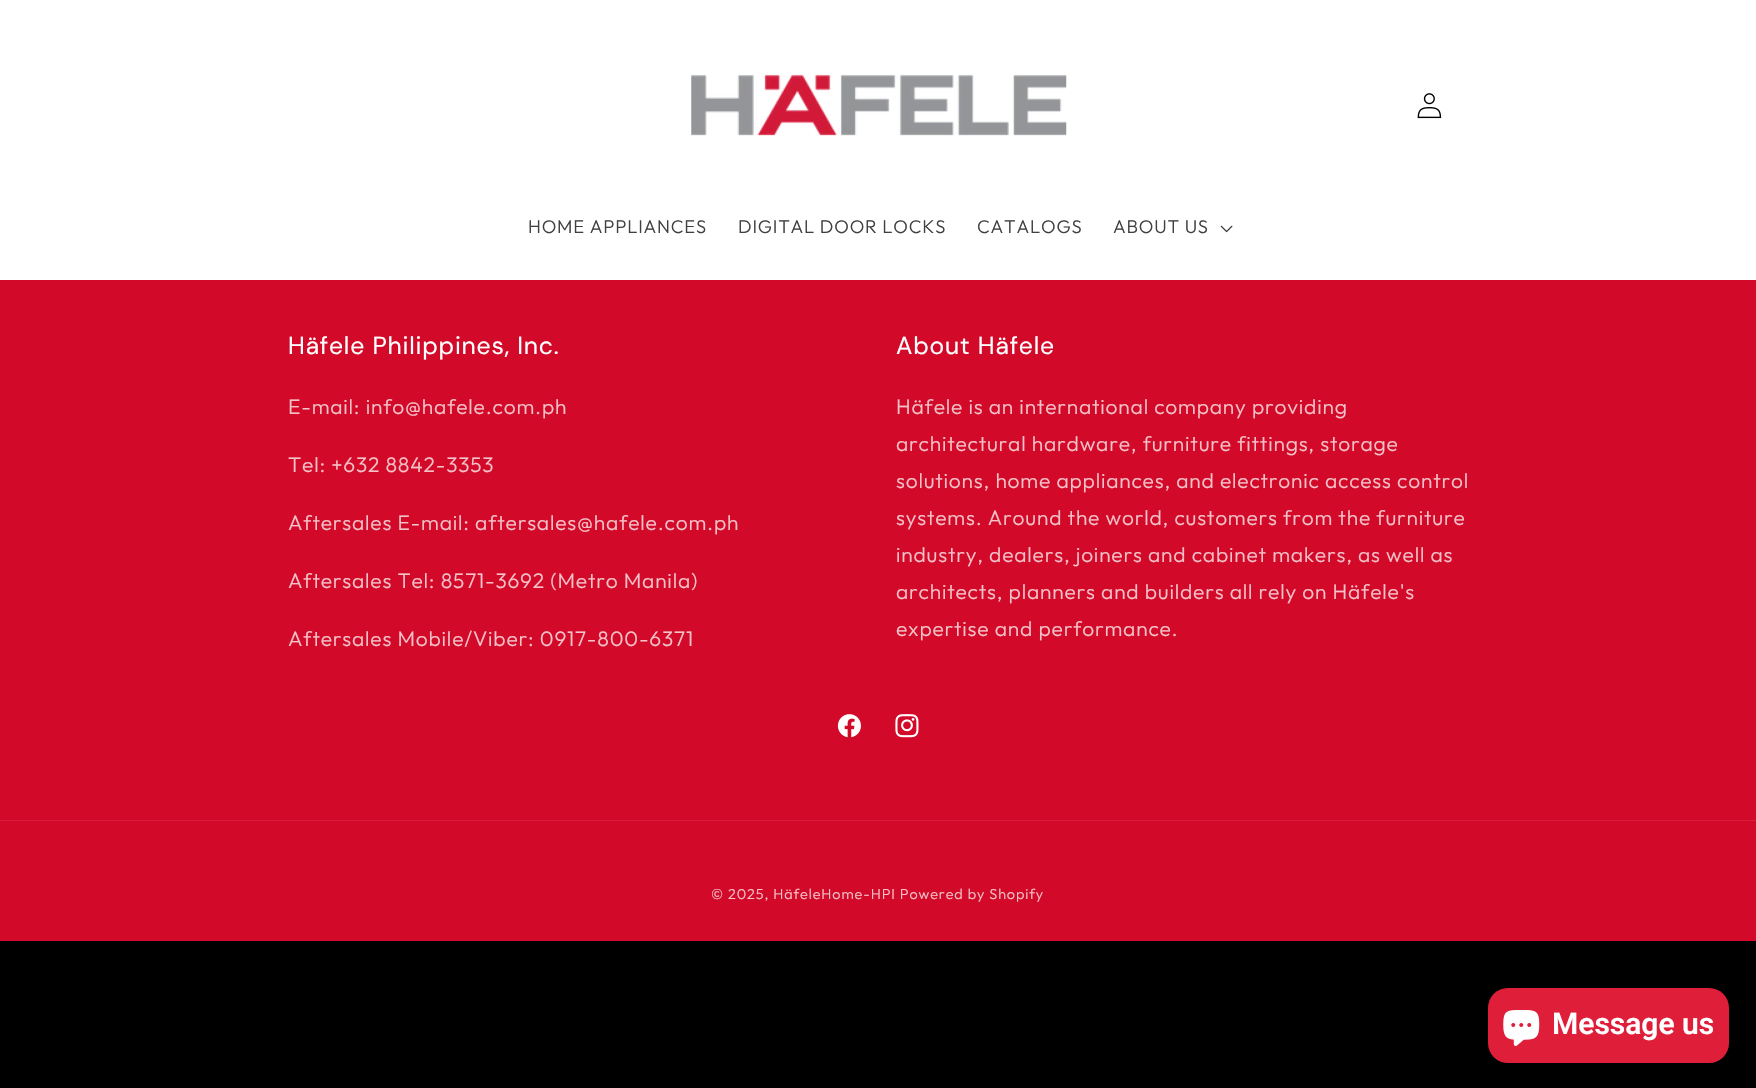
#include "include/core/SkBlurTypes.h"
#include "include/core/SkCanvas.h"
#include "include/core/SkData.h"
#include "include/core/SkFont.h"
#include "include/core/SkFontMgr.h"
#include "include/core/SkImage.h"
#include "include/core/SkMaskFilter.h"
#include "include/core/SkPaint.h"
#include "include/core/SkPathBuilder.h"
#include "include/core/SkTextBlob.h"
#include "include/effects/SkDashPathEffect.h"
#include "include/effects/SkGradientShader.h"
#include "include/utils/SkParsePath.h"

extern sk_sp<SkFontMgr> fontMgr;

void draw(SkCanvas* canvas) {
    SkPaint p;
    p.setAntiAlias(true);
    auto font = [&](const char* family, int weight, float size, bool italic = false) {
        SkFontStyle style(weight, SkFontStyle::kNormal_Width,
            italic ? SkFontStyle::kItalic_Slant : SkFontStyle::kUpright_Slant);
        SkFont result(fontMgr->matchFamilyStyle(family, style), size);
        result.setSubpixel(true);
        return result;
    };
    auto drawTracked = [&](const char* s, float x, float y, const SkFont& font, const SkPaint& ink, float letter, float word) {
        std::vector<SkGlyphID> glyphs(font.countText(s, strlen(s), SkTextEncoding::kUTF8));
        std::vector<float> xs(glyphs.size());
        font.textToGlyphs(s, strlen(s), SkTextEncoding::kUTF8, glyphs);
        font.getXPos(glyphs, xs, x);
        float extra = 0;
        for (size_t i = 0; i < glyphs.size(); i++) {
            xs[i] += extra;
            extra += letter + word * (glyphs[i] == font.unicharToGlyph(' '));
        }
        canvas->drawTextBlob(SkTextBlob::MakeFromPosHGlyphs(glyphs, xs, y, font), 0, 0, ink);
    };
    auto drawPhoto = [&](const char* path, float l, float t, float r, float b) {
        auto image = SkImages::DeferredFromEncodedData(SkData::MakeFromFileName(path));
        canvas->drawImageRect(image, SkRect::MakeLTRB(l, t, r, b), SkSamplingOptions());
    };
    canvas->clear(0xFF000000);
    p.setColor(0xFFFFFFFF);
    canvas->drawRect(SkRect::MakeLTRB(0, 0, 1756, 280), p);
    drawPhoto("media/1.png", 691, 74, 1067, 136);
    drawPhoto("media/2.png", 1417, 93, 1442, 119);
    auto font1 = font("Outfit", 300, 18.4f);
    p.setColor(0xFF404040);
    {
        const struct { const char* s; float x, y; } items[] = {
            {"HOME APPLIANCES", 528, 233},
            {"DIGITAL DOOR LOCKS", 738, 233},
            {"CATALOGS", 977, 233},
            {"ABOUT US", 1113, 233},
        };
        for (auto [s, x, y] : items) {
            drawTracked(s, x, y, font1, p, 0.8f, 0);
        }
    }
    drawPhoto("media/3.png", 1220, 225, 1233, 233);
    p.setColor(0xFFD20928);
    canvas->drawRect(SkRect::MakeLTRB(0, 280, 1756, 941), p);
    auto font2 = font("DM Sans", 400, 24.75f);
    p.setColor(0xFFFFFFFF);
    drawTracked("Häfele Philippines, Inc.", 288, 354, font2, p, 0.8f, 0);
    auto font3 = font("Outfit", 300, 21);
    p.setColor(0xFFF4C2C9);
    {
        const struct { const char* s; float x, y; } items[] = {
            {"E-mail: info@hafele.com.ph", 288, 414},
            {"Tel: +632 8842-3353", 288, 472},
            {"Aftersales E-mail: aftersales@hafele.com.ph", 288, 530},
            {"Aftersales Tel: 8571-3692 (Metro Manila)", 288, 588},
            {"Aftersales Mobile/Viber: 0917-800-6371", 288, 646},
        };
        for (auto [s, x, y] : items) {
            drawTracked(s, x, y, font3, p, 0.8f, 0);
        }
    }
    p.setColor(0xFFFFFFFF);
    drawTracked("About Häfele", 896, 354, font2, p, 0.8f, 0);
    p.setColor(0xFFF4C2C9);
    {
        const struct { const char* s; float x, y; } items[] = {
            {"Häfele is an international company providing", 896, 414},
            {"architectural hardware, furniture fittings, storage", 896, 451},
            {"solutions, home appliances, and electronic access control", 896, 488},
            {"systems. Around the world, customers from the furniture", 896, 525},
            {"industry, dealers, joiners and cabinet makers, as well as", 896, 562},
            {"architects, planners and builders all rely on Häfele's", 896, 599},
            {"expertise and performance.", 896, 636},
        };
        for (auto [s, x, y] : items) {
            drawTracked(s, x, y, font3, p, 0.8f, 0);
        }
    }
    drawPhoto("media/4.png", 837, 714, 861, 738);
    drawPhoto("media/5.png", 895, 714, 919, 738);
    p.setColor(0xFFD61D39);
    canvas->drawRect(SkRect::MakeLTRB(0, 820, 1756, 821), p);
    auto font4 = font("Outfit", 300, 14.4f);
    p.setColor(0xFFF4C2C9);
    drawTracked("© 2025, HäfeleHome-HPI Powered by Shopify", 711, 899, font4, p, 0.9f, 0);
    p.setColor(0xFFDF1E39);
    canvas->drawRoundRect(SkRect::MakeLTRB(1488, 988, 1729, 1063), 20, 20, p);
    drawPhoto("media/6.png", 1503, 1010, 1540, 1046);
    auto font5 = font("Roboto", 600, 30);
    p.setColor(0xFFFFFFFF);
    canvas->drawString("Message us", 1552, 1034, font5, p);
}
